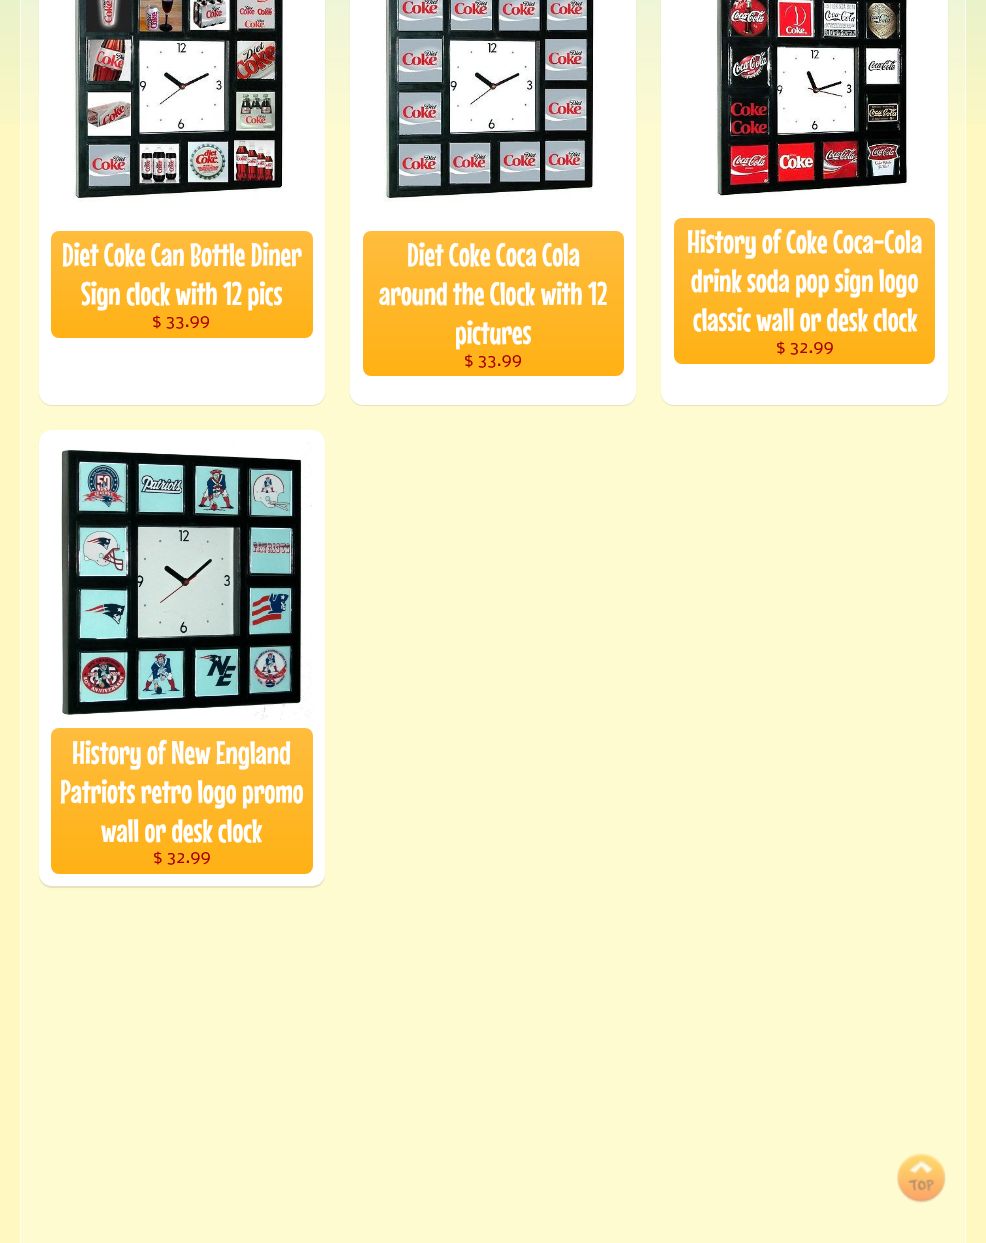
#include "include/core/SkBlurTypes.h"
#include "include/core/SkCanvas.h"
#include "include/core/SkData.h"
#include "include/core/SkFont.h"
#include "include/core/SkFontMgr.h"
#include "include/core/SkImage.h"
#include "include/core/SkMaskFilter.h"
#include "include/core/SkPaint.h"
#include "include/core/SkPathBuilder.h"
#include "include/core/SkTextBlob.h"
#include "include/effects/SkDashPathEffect.h"
#include "include/effects/SkGradientShader.h"
#include "include/utils/SkParsePath.h"

extern sk_sp<SkFontMgr> fontMgr;

void draw(SkCanvas* canvas) {
    SkPaint p;
    p.setAntiAlias(true);
    auto font = [&](const char* family, int weight, float size, bool italic = false) {
        SkFontStyle style(weight, SkFontStyle::kNormal_Width,
            italic ? SkFontStyle::kItalic_Slant : SkFontStyle::kUpright_Slant);
        SkFont result(fontMgr->matchFamilyStyle(family, style), size);
        result.setSubpixel(true);
        return result;
    };
    auto drawPhoto = [&](const char* path, float l, float t, float r, float b) {
        auto image = SkImages::DeferredFromEncodedData(SkData::MakeFromFileName(path));
        canvas->drawImageRect(image, SkRect::MakeLTRB(l, t, r, b), SkSamplingOptions());
    };
    canvas->clear(0xFFFFF9C1);
    p.setColor(0xFFFFFBD1);
    canvas->drawRect(SkRect::MakeLTRB(20, 0, 966, 1243), p);
    drawPhoto("media/1.png", 0, 0, 986, 124);
    p.setStyle(SkPaint::kStroke_Style);
    p.setStrokeWidth(1);
    p.setColor(0xB3FFFFFF);
    canvas->drawRect(SkRect::MakeLTRB(20.5f, -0.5f, 965.5f, 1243.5f), p);
    p.setStyle(SkPaint::kFill_Style);
    p.setColor(0x1A000000);
    p.setMaskFilter(SkMaskFilter::MakeBlur(kNormal_SkBlurStyle, 0.5f));
    canvas->drawRoundRect(SkRect::MakeLTRB(39, -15, 325, 406), 13, 13, p);
    p.setMaskFilter(nullptr);
    p.setColor(0xFFFFFFFF);
    canvas->drawRoundRect(SkRect::MakeLTRB(39, -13, 325, 405), 13, 13, p);
    drawPhoto("media/2.png", 72, 0, 286, 202);
    {
        const SkColor colors[] = {0xFFFFBD3E, 0xFFFFB114};
        const float stops[] = {0, 1};
        const SkPoint ends[] = {{182, 231}, {182, 338}};
        p.setShader(SkGradientShader::MakeLinear(ends, colors, stops, 2, SkTileMode::kClamp));
        p.setAlpha(255);
    }
    canvas->drawRoundRect(SkRect::MakeLTRB(51, 231, 313, 338), 8, 8, p);
    auto font1 = font("Mouse Memoirs", 400, 32.5f);
    p.setShader(nullptr);
    p.setColor(0xFFFFFFFF);
    canvas->drawString("Diet Coke Can Bottle Diner", 62, 266, font1, p);
    canvas->drawString("Sign clock with 12 pics", 81, 305, font1, p);
    auto font2 = font("Nobile", 400, 17);
    p.setColor(0xFFAA0000);
    canvas->drawString("$ 33.99", 152, 327, font2, p);
    p.setColor(0x1A000000);
    p.setMaskFilter(SkMaskFilter::MakeBlur(kNormal_SkBlurStyle, 0.5f));
    canvas->drawRoundRect(SkRect::MakeLTRB(350, -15, 636, 406), 13, 13, p);
    p.setMaskFilter(nullptr);
    p.setColor(0xFFFFFFFF);
    canvas->drawRoundRect(SkRect::MakeLTRB(350, -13, 636, 405), 13, 13, p);
    drawPhoto("media/3.png", 383, 0, 597, 202);
    {
        const SkColor colors[] = {0xFFFFBD3E, 0xFFFFB114};
        const float stops[] = {0, 1};
        const SkPoint ends[] = {{493, 231}, {493, 376}};
        p.setShader(SkGradientShader::MakeLinear(ends, colors, stops, 2, SkTileMode::kClamp));
        p.setAlpha(255);
    }
    canvas->drawRoundRect(SkRect::MakeLTRB(363, 231, 624, 376), 8, 8, p);
    p.setShader(nullptr);
    p.setColor(0xFFFFFFFF);
    {
        const struct { const char* s; float x, y; } items[] = {
            {"Diet Coke Coca Cola", 407, 266},
            {"around the Clock with 12", 379, 305},
            {"pictures", 455, 344},
        };
        for (auto [s, x, y] : items) {
            canvas->drawString(s, x, y, font1, p);
        }
    }
    p.setColor(0xFFAA0000);
    canvas->drawString("$ 33.99", 464, 366, font2, p);
    p.setColor(0x1A000000);
    p.setMaskFilter(SkMaskFilter::MakeBlur(kNormal_SkBlurStyle, 0.5f));
    canvas->drawRoundRect(SkRect::MakeLTRB(661, -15, 948, 406), 13, 13, p);
    p.setMaskFilter(nullptr);
    p.setColor(0xFFFFFFFF);
    canvas->drawRoundRect(SkRect::MakeLTRB(661, -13, 948, 405), 13, 13, p);
    drawPhoto("media/4.png", 715, 0, 909, 199);
    {
        const SkColor colors[] = {0xFFFFBD3E, 0xFFFFB114};
        const float stops[] = {0, 1};
        const SkPoint ends[] = {{804, 218}, {804, 364}};
        p.setShader(SkGradientShader::MakeLinear(ends, colors, stops, 2, SkTileMode::kClamp));
        p.setAlpha(255);
    }
    canvas->drawRoundRect(SkRect::MakeLTRB(674, 218, 935, 364), 8, 8, p);
    p.setShader(nullptr);
    p.setColor(0xFFFFFFFF);
    {
        const struct { const char* s; float x, y; } items[] = {
            {"History of Coke Coca-Cola", 687, 253},
            {"drink soda pop sign logo", 691, 292},
            {"classic wall or desk clock", 693, 331},
        };
        for (auto [s, x, y] : items) {
            canvas->drawString(s, x, y, font1, p);
        }
    }
    p.setColor(0xFFAA0000);
    canvas->drawString("$ 32.99", 776, 353, font2, p);
    p.setColor(0x1A000000);
    p.setMaskFilter(SkMaskFilter::MakeBlur(kNormal_SkBlurStyle, 0.5f));
    canvas->drawRoundRect(SkRect::MakeLTRB(39, 431, 325, 888), 13, 13, p);
    p.setMaskFilter(nullptr);
    p.setColor(0xFFFFFFFF);
    canvas->drawRoundRect(SkRect::MakeLTRB(39, 430, 325, 886), 13, 13, p);
    drawPhoto("media/5.png", 54, 442, 313, 720);
    {
        const SkColor colors[] = {0xFFFFBD3E, 0xFFFFB114};
        const float stops[] = {0, 1};
        const SkPoint ends[] = {{182, 728}, {182, 874}};
        p.setShader(SkGradientShader::MakeLinear(ends, colors, stops, 2, SkTileMode::kClamp));
        p.setAlpha(255);
    }
    canvas->drawRoundRect(SkRect::MakeLTRB(51, 728, 313, 874), 8, 8, p);
    p.setShader(nullptr);
    p.setColor(0xFFFFFFFF);
    {
        const struct { const char* s; float x, y; } items[] = {
            {"History of New England", 72, 764},
            {"Patriots retro logo promo", 60, 803},
            {"wall or desk clock", 101, 842},
        };
        for (auto [s, x, y] : items) {
            canvas->drawString(s, x, y, font1, p);
        }
    }
    p.setColor(0xFFAA0000);
    canvas->drawString("$ 32.99", 153, 863, font2, p);
    drawPhoto("media/6.png", 897, 1153, 946, 1203);
}
